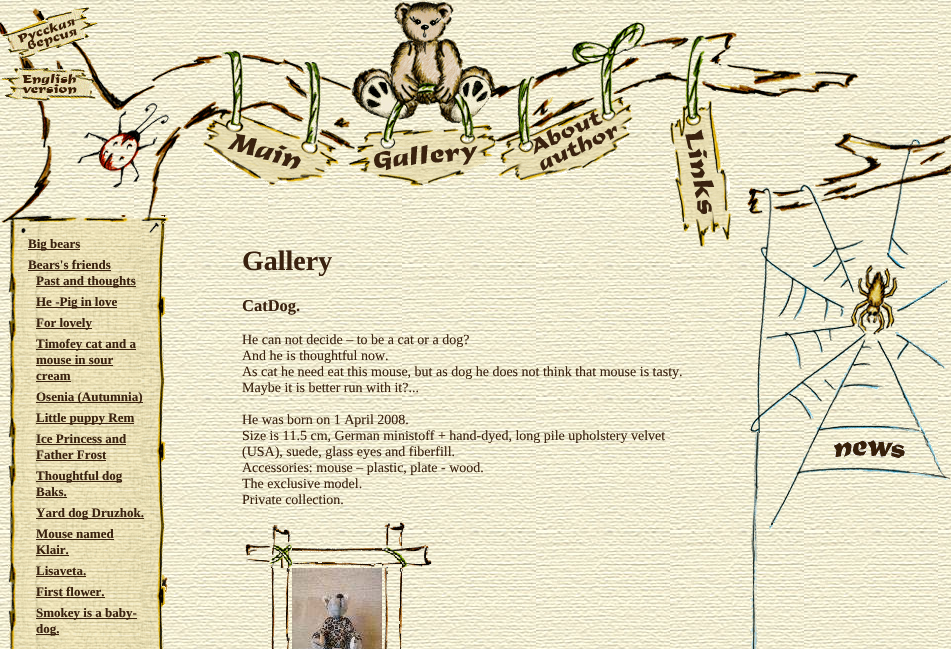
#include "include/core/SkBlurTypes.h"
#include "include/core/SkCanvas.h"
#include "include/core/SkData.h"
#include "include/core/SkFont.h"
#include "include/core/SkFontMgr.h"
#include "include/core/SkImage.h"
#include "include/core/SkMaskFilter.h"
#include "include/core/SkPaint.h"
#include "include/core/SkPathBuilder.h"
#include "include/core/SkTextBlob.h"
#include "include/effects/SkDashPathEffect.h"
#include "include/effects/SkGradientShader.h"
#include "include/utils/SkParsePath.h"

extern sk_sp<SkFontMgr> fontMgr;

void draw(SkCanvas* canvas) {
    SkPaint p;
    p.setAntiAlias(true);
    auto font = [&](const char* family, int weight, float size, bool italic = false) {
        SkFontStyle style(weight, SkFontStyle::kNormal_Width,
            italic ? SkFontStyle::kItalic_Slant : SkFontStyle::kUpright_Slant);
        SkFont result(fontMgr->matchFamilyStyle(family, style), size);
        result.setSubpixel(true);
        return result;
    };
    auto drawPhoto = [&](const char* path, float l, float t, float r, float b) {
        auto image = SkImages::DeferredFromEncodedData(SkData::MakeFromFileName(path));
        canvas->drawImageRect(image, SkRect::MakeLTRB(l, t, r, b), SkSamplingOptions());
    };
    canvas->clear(0xFFFFFFFF);
    drawPhoto("media/1.png", 0, 0, 951, 649);
    drawPhoto("media/9.png", 0, 8, 202, 215);
    drawPhoto("media/2.png", 2, 1, 101, 101);
    drawPhoto("media/3.png", 202, 0, 859, 99);
    drawPhoto("media/4.png", 202, 99, 350, 186);
    drawPhoto("media/5.png", 350, 99, 495, 187);
    drawPhoto("media/6.png", 495, 99, 633, 181);
    drawPhoto("media/7.png", 669, 99, 732, 248);
    drawPhoto("media/19.png", 750, 432, 761, 649);
    drawPhoto("media/8.png", 746, 131, 951, 530);
    drawPhoto("media/10.png", 120, 215, 169, 594);
    drawPhoto("media/11.png", 1, 215, 170, 236);
    drawPhoto("media/12.png", 7, 236, 166, 649);
    p.setColor(0xFF3A220F);
    canvas->drawRect(SkRect::MakeLTRB(28, 249, 80, 250), p);
    auto font1 = font("Liberation Serif", 700, 13);
    canvas->drawString("Big bears", 28, 248, font1, p);
    canvas->drawString("Bears's friends", 28, 269, font1, p);
    canvas->drawRect(SkRect::MakeLTRB(28, 270, 111, 271), p);
    canvas->drawRect(SkRect::MakeLTRB(36, 286, 136, 287), p);
    canvas->drawString("Past and thoughts", 36, 285, font1, p);
    canvas->drawRect(SkRect::MakeLTRB(36, 307, 117, 308), p);
    canvas->drawString("He -Pig in love", 36, 306, font1, p);
    canvas->drawRect(SkRect::MakeLTRB(36, 328, 92, 329), p);
    canvas->drawString("For lovely", 36, 327, font1, p);
    canvas->drawRect(SkRect::MakeLTRB(36, 349, 136, 350), p);
    canvas->drawString("Timofey cat and a", 36, 348, font1, p);
    canvas->drawString("mouse in sour", 36, 364, font1, p);
    canvas->drawRect(SkRect::MakeLTRB(36, 365, 113, 366), p);
    canvas->drawString("cream", 36, 380, font1, p);
    canvas->drawRect(SkRect::MakeLTRB(36, 381, 71, 382), p);
    canvas->drawRect(SkRect::MakeLTRB(36, 402, 143, 403), p);
    canvas->drawString("Osenia (Autumnia)", 36, 401, font1, p);
    canvas->drawRect(SkRect::MakeLTRB(36, 423, 134, 424), p);
    canvas->drawString("Little puppy Rem", 36, 422, font1, p);
    canvas->drawString("Ice Princess and", 36, 443, font1, p);
    canvas->drawRect(SkRect::MakeLTRB(36, 444, 126, 445), p);
    canvas->drawString("Father Frost", 36, 459, font1, p);
    canvas->drawRect(SkRect::MakeLTRB(36, 460, 106, 461), p);
    canvas->drawRect(SkRect::MakeLTRB(36, 481, 122, 482), p);
    canvas->drawString("Thoughtful dog", 36, 480, font1, p);
    canvas->drawString("Baks.", 36, 496, font1, p);
    canvas->drawRect(SkRect::MakeLTRB(36, 497, 67, 498), p);
    canvas->drawRect(SkRect::MakeLTRB(36, 518, 144, 519), p);
    canvas->drawString("Yard dog Druzhok.", 36, 517, font1, p);
    canvas->drawString("Mouse named", 36, 538, font1, p);
    canvas->drawRect(SkRect::MakeLTRB(36, 539, 114, 540), p);
    canvas->drawString("Klair.", 36, 554, font1, p);
    canvas->drawRect(SkRect::MakeLTRB(36, 555, 69, 556), p);
    canvas->drawString("Lisaveta.", 36, 575, font1, p);
    canvas->drawRect(SkRect::MakeLTRB(36, 576, 86, 577), p);
    canvas->drawString("First flower.", 36, 596, font1, p);
    canvas->drawRect(SkRect::MakeLTRB(36, 597, 105, 598), p);
    canvas->drawRect(SkRect::MakeLTRB(36, 618, 137, 619), p);
    canvas->drawString("Smokey is a baby-", 36, 617, font1, p);
    canvas->drawRect(SkRect::MakeLTRB(36, 634, 59, 635), p);
    canvas->drawString("dog.", 36, 633, font1, p);
    auto font2 = font("Liberation Serif", 700, 28);
    canvas->drawString("Gallery", 242, 270, font2, p);
    auto font3 = font("Liberation Serif", 700, 16.5f);
    canvas->drawString("CatDog.", 242, 311, font3, p);
    auto font4 = font("Liberation Serif", 400, 14);
    {
        const struct { const char* s; float x, y; } items[] = {
            {"He can not decide – to be a cat or a dog?", 242, 344},
            {"And he is thoughtful now.", 242, 360},
            {"As cat he need eat this mouse, but as dog he does not think that mouse is tasty.", 242, 376},
            {"Maybe it is better run with it?...", 242, 392},
            {"He was born on 1 April 2008.", 242, 424},
            {"Size is 11.5 cm, German ministoff + hand-dyed, long pile upholstery velvet", 242, 440},
            {"(USA), suede, glass eyes and fiberfill.", 242, 456},
            {"Accessories: mouse – plastic, plate - wood.", 242, 472},
            {"The exclusive model.", 242, 488},
            {"Private collection.", 242, 504},
        };
        for (auto [s, x, y] : items) {
            canvas->drawString(s, x, y, font4, p);
        }
    }
    drawPhoto("media/13.png", 245, 525, 292, 568);
    drawPhoto("media/14.png", 292, 548, 382, 568);
    drawPhoto("media/15.png", 382, 522, 432, 568);
    drawPhoto("media/16.png", 271, 568, 291, 649);
    drawPhoto("media/17.png", 292, 568, 382, 649);
    drawPhoto("media/18.png", 384, 568, 404, 649);
}
